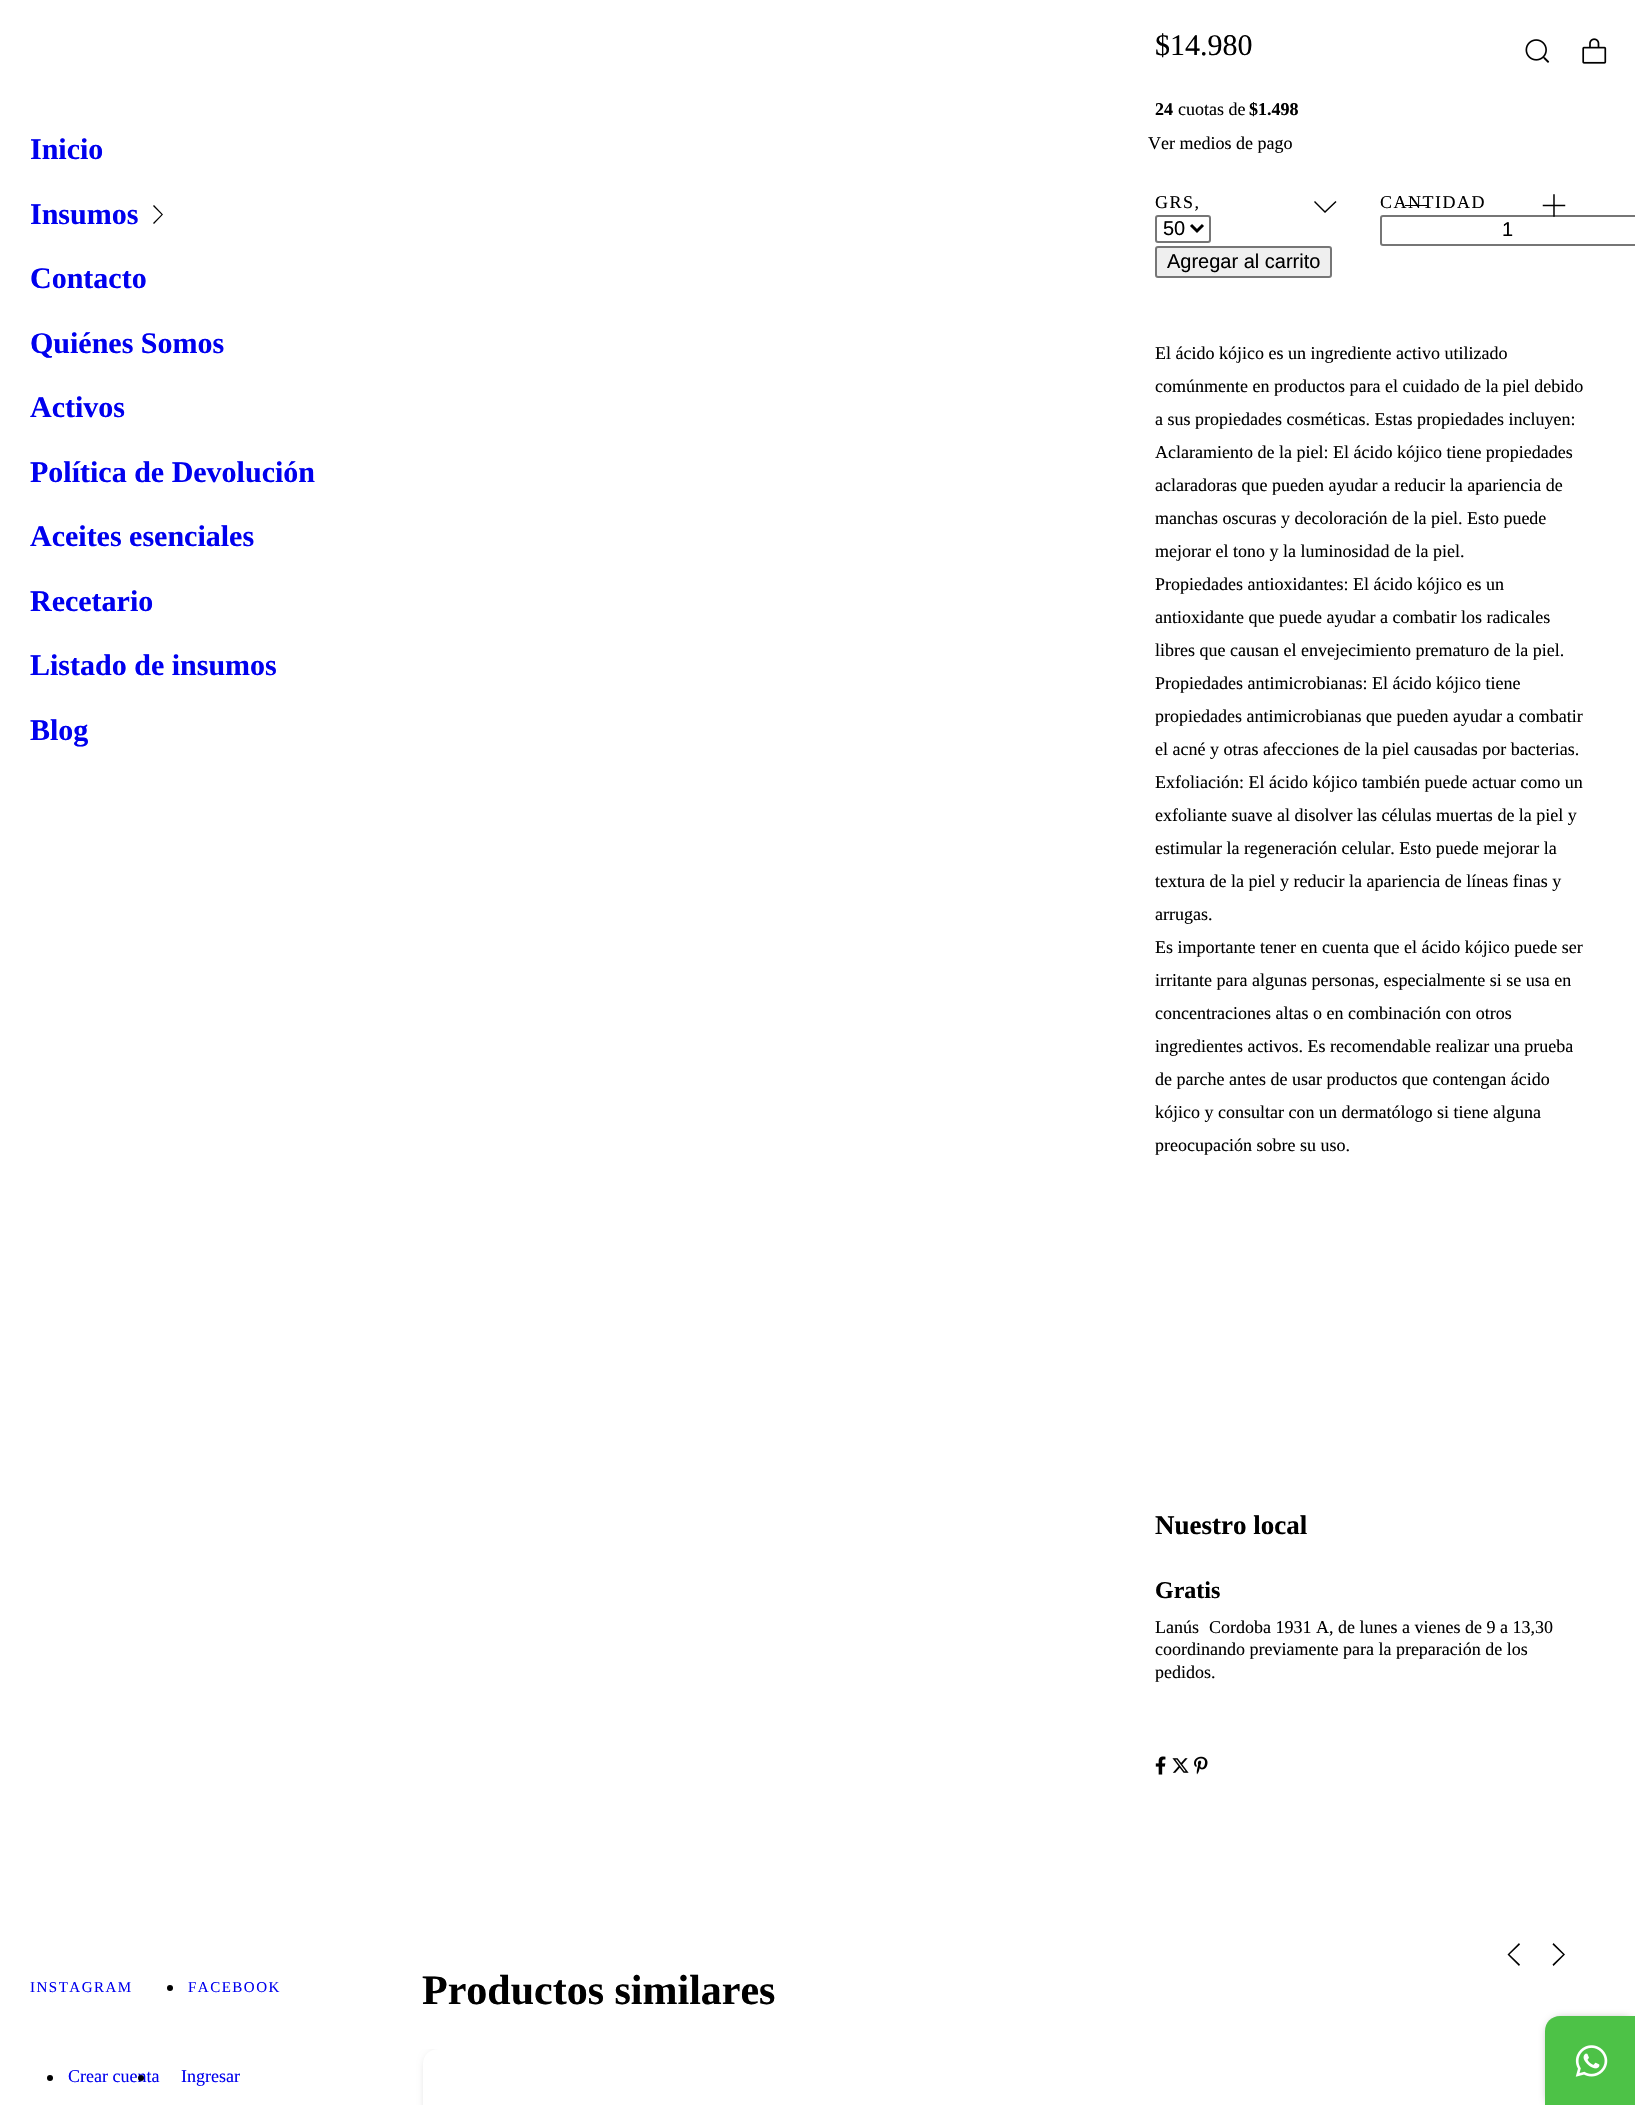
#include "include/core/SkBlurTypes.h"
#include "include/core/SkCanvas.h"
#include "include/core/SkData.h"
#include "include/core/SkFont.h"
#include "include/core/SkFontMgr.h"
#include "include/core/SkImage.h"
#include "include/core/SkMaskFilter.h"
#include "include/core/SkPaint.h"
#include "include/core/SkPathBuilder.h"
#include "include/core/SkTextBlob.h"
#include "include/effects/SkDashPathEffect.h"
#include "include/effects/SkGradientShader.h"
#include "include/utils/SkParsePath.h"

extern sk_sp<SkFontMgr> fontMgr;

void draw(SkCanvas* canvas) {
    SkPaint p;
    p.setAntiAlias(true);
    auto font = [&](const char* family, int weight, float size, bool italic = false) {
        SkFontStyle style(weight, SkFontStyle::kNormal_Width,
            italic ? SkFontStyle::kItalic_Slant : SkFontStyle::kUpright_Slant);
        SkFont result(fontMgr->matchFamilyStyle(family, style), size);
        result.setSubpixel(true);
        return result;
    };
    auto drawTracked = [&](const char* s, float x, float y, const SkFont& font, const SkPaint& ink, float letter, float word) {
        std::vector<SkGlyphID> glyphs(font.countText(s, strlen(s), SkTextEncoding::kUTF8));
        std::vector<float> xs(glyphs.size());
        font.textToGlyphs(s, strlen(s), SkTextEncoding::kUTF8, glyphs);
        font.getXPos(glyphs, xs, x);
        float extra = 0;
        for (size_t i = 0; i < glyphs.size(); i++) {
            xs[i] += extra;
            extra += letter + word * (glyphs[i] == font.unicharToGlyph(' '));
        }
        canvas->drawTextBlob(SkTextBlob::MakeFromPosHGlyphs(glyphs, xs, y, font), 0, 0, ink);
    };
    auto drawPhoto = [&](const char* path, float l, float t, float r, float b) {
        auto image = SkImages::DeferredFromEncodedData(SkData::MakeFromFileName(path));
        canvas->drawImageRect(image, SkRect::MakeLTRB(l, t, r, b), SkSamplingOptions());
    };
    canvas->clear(0xFFFFFFFF);
    auto font1 = font("Liberation Serif", 400, 30);
    p.setColor(0xFF000000);
    canvas->drawString("$14.980", 1155, 55, font1, p);
    auto font2 = font("Liberation Serif", 700, 18);
    canvas->drawString("24", 1155, 115, font2, p);
    auto font3 = font("Liberation Serif", 400, 18);
    canvas->drawString("cuotas de", 1178, 115, font3, p);
    canvas->drawString("$1.498", 1249, 115, font2, p);
    canvas->drawString("Ver medios de pago", 1148, 149, font3, p);
    drawTracked("GRS,", 1155, 208, font3, p, 1.5f, 0);
    canvas->drawPath(SkPathBuilder().moveTo(1325, 213).lineTo(1314, 202).lineTo(1315, 201).lineTo(1325, 211).lineTo(1335.5f, 201).lineTo(1336.5f, 202).close().detach(), p);
    p.setStyle(SkPaint::kStroke_Style);
    p.setStrokeWidth(2);
    p.setColor(0xFF767676);
    canvas->drawRoundRect(SkRect::MakeLTRB(1156, 216, 1210, 242), 2, 2, p);
    p.setStrokeWidth(3);
    p.setColor(0xFF000000);
    canvas->drawPath(SkPathBuilder().moveTo(1191, 225).lineTo(1197, 231).lineTo(1203, 225).detach(), p);
    auto font4 = font("Liberation Sans", 400, 20);
    p.setStyle(SkPaint::kFill_Style);
    canvas->drawString("50", 1163, 235, font4, p);
    drawTracked("CANTIDAD", 1380, 208, font3, p, 1.5f, 0);
    p.setStyle(SkPaint::kStroke_Style);
    p.setStrokeWidth(2);
    p.setColor(0xFF767676);
    canvas->drawRoundRect(SkRect::MakeLTRB(1381, 216, 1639, 245), 2, 2, p);
    drawPhoto("media/1.png", 1542, 194, 1566, 217);
    p.setStyle(SkPaint::kFill_Style);
    p.setColor(0xFF000000);
    canvas->drawRect(SkRect::MakeLTRB(1405, 205, 1427, 206), p);
    canvas->drawString("1", 1502, 236, font4, p);
    p.setColor(0xFFEFEFEF);
    canvas->drawRoundRect(SkRect::MakeLTRB(1156, 247, 1331, 277), 2, 2, p);
    p.setStyle(SkPaint::kStroke_Style);
    p.setColor(0xFF767676);
    canvas->drawRoundRect(SkRect::MakeLTRB(1156, 247, 1331, 277), 2, 2, p);
    p.setStyle(SkPaint::kFill_Style);
    p.setColor(0xFF000000);
    canvas->drawString("Agregar al carrito", 1167, 268, font4, p);
    {
        const struct { const char* s; float x, y; } items[] = {
            {"El ácido kójico es un ingrediente activo utilizado", 1155, 359},
            {"comúnmente en productos para el cuidado de la piel debido", 1155, 392},
            {"a sus propiedades cosméticas. Estas propiedades incluyen:", 1155, 425},
            {"Aclaramiento de la piel: El ácido kójico tiene propiedades", 1155, 458},
            {"aclaradoras que pueden ayudar a reducir la apariencia de", 1155, 491},
            {"manchas oscuras y decoloración de la piel. Esto puede", 1155, 524},
            {"mejorar el tono y la luminosidad de la piel.", 1155, 557},
            {"Propiedades antioxidantes: El ácido kójico es un", 1155, 590},
            {"antioxidante que puede ayudar a combatir los radicales", 1155, 623},
            {"libres que causan el envejecimiento prematuro de la piel.", 1155, 656},
            {"Propiedades antimicrobianas: El ácido kójico tiene", 1155, 689},
            {"propiedades antimicrobianas que pueden ayudar a combatir", 1155, 722},
            {"el acné y otras afecciones de la piel causadas por bacterias.", 1155, 755},
            {"Exfoliación: El ácido kójico también puede actuar como un", 1155, 788},
            {"exfoliante suave al disolver las células muertas de la piel y", 1155, 821},
            {"estimular la regeneración celular. Esto puede mejorar la", 1155, 854},
            {"textura de la piel y reducir la apariencia de líneas finas y", 1155, 887},
            {"arrugas.", 1155, 920},
            {"Es importante tener en cuenta que el ácido kójico puede ser", 1155, 953},
            {"irritante para algunas personas, especialmente si se usa en", 1155, 986},
            {"concentraciones altas o en combinación con otros", 1155, 1019},
            {"ingredientes activos. Es recomendable realizar una prueba", 1155, 1052},
            {"de parche antes de usar productos que contengan ácido", 1155, 1085},
            {"kójico y consultar con un dermatólogo si tiene alguna", 1155, 1118},
            {"preocupación sobre su uso.", 1155, 1151},
        };
        for (auto [s, x, y] : items) {
            canvas->drawString(s, x, y, font3, p);
        }
    }
    auto font5 = font("Liberation Serif", 700, 27);
    canvas->drawString("Nuestro local", 1155, 1534, font5, p);
    auto font6 = font("Liberation Serif", 700, 24);
    canvas->drawString("Gratis", 1155, 1598, font6, p);
    {
        const struct { const char* s; float x, y; } items[] = {
            {"Lanús", 1155, 1633},
            {"Cordoba 1931 A, de lunes a vienes de 9 a 13,30", 1209, 1633},
            {"coordinando previamente para la preparación de los", 1155, 1655},
            {"pedidos.", 1155, 1678},
        };
        for (auto [s, x, y] : items) {
            canvas->drawString(s, x, y, font3, p);
        }
    }
    drawPhoto("media/2.png", 1155, 1756, 1166, 1775);
    drawPhoto("media/3.png", 1172, 1758, 1189, 1773);
    drawPhoto("media/4.png", 1194, 1756, 1208, 1775);
    canvas->drawPath(SkPathBuilder().moveTo(1507.5f, 1954.5f).lineTo(1519, 1943).lineTo(1520, 1944.5f).lineTo(1509.5f, 1954.5f).lineTo(1520, 1964.5f).lineTo(1519, 1966).close().moveTo(1553.5f, 1966).lineTo(1552.5f, 1964.5f).lineTo(1563, 1954.5f).lineTo(1552.5f, 1944.5f).lineTo(1553.5f, 1943).lineTo(1565, 1954.5f).close().detach(), p);
    auto font7 = font("Liberation Serif", 700, 42);
    canvas->drawString("Productos similares", 422, 2004, font7, p);
    canvas->save();
    canvas->clipRect(SkRect::MakeLTRB(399, 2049, 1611, 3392));
    canvas->clipPath(SkPathBuilder(SkPathFillType::kEvenOdd).moveTo(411, 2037).lineTo(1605, 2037).lineTo(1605, 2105).lineTo(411, 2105).close().moveTo(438, 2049).lineTo(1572, 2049).cubicTo(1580.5f, 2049, 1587, 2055.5f, 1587, 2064).lineTo(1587, 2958).cubicTo(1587, 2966.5f, 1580.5f, 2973, 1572, 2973).lineTo(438, 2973).cubicTo(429.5f, 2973, 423, 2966.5f, 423, 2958).lineTo(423, 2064).cubicTo(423, 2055.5f, 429.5f, 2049, 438, 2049).close().detach(), true);
    p.setColor(0x33000000);
    p.setMaskFilter(SkMaskFilter::MakeBlur(kNormal_SkBlurStyle, 4.5f));
    canvas->drawRoundRect(SkRect::MakeLTRB(426, 2052, 1590, 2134), 15, 15, p);
    p.setMaskFilter(nullptr);
    canvas->restore();
    drawPhoto("media/5.png", 1525, 39, 1550, 63);
    drawPhoto("media/6.png", 1582, 38, 1607, 64);
    auto font8 = font("Liberation Serif", 700, 30);
    p.setColor(0xFF0000EE);
    canvas->drawString("Inicio", 30, 159, font8, p);
    canvas->drawString("Insumos", 30, 224, font8, p);
    p.setColor(0xFF000000);
    canvas->drawPath(SkPathBuilder().moveTo(154, 224).lineTo(153, 223).lineTo(161.5f, 214.5f).lineTo(153, 206).lineTo(154, 205).lineTo(163, 214.5f).close().detach(), p);
    p.setColor(0xFF0000EE);
    {
        const struct { const char* s; float x, y; } items[] = {
            {"Contacto", 30, 288},
            {"Quiénes Somos", 30, 353},
            {"Activos", 30, 417},
            {"Política de Devolución", 30, 482},
            {"Aceites esenciales", 30, 546},
            {"Recetario", 30, 611},
            {"Listado de insumos", 30, 675},
            {"Blog", 30, 740},
        };
        for (auto [s, x, y] : items) {
            canvas->drawString(s, x, y, font8, p);
        }
    }
    auto font9 = font("Liberation Serif", 400, 15);
    drawTracked("INSTAGRAM", 30, 1992, font9, p, 1.5f, 0);
    p.setColor(0xFF000000);
    canvas->drawCircle(170, 1988, 3, p);
    p.setColor(0xFF0000EE);
    drawTracked("FACEBOOK", 188, 1992, font9, p, 1.5f, 0);
    p.setColor(0xFF000000);
    canvas->drawCircle(50, 2078, 3, p);
    p.setColor(0xFF0000EE);
    canvas->drawString("Crear cuenta", 68, 2082, font3, p);
    p.setColor(0xFF000000);
    canvas->drawCircle(141, 2078, 3, p);
    p.setColor(0xFF0000EE);
    canvas->drawString("Ingresar", 181, 2082, font3, p);
    p.setColor(0x66000000);
    p.setMaskFilter(SkMaskFilter::MakeBlur(kNormal_SkBlurStyle, 4.5f));
    canvas->drawRoundRect(SkRect::MakeLTRB(1548, 2019, 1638, 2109), 15, 15, p);
    p.setMaskFilter(nullptr);
    p.setColor(0xFF4DC247);
    canvas->drawPath(SkPathBuilder().moveTo(1560, 2016).lineTo(1635, 2016).lineTo(1635, 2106).lineTo(1545, 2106).lineTo(1545, 2031).cubicTo(1545, 2022.5f, 1551.5f, 2016, 1560, 2016).close().detach(), p);
    drawPhoto("media/7.png", 1575, 2045, 1608, 2077);
}
